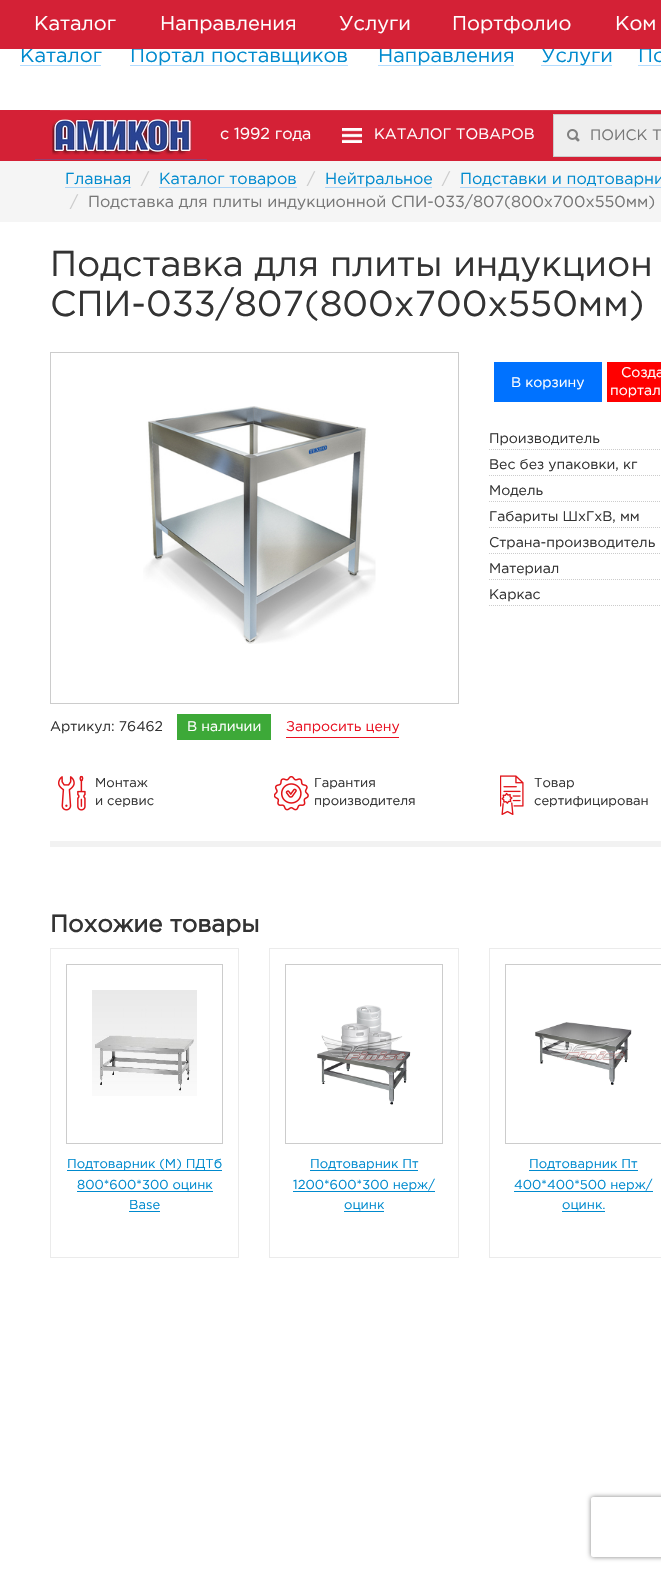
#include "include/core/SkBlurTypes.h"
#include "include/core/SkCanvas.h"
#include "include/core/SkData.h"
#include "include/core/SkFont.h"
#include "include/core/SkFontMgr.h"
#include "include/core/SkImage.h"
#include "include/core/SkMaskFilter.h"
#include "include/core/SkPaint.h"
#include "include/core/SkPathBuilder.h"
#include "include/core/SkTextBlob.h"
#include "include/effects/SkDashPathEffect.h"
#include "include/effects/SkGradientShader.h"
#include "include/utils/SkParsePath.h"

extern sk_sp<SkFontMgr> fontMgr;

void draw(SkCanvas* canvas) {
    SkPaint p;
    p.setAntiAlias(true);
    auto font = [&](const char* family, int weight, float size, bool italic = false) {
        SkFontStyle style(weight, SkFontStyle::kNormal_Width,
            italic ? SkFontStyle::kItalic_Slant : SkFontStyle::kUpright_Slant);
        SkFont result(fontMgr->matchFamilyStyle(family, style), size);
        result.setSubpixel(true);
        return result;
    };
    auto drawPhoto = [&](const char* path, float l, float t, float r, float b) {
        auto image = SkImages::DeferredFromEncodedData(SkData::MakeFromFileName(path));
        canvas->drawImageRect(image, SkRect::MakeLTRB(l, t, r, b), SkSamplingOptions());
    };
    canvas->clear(0xFFFFFFFF);
    auto font1 = font("Gotham", 400, 20);
    p.setColor(0xFF008ACE);
    canvas->drawString("Каталог", 20, 62, font1, p);
    p.setColor(0xFFB3DCFF);
    canvas->drawRect(SkRect::MakeLTRB(130, 65, 348, 66), p);
    p.setColor(0xFF008ACE);
    canvas->drawString("Портал поставщиков", 130, 62, font1, p);
    p.setColor(0xFFB3DCFF);
    canvas->drawRect(SkRect::MakeLTRB(378, 65, 514, 66), p);
    p.setColor(0xFF008ACE);
    canvas->drawString("Направления", 378, 62, font1, p);
    p.setColor(0xFFB3DCFF);
    canvas->drawRect(SkRect::MakeLTRB(541, 65, 612, 66), p);
    p.setColor(0xFF008ACE);
    canvas->drawString("Услуги", 541, 62, font1, p);
    canvas->drawString("По", 638, 62, font1, p);
    p.setColor(0xFFD42136);
    canvas->drawRect(SkRect::MakeLTRB(0, 0, 661, 49), p);
    p.setColor(0xFFFFFFFF);
    {
        const struct { const char* s; float x, y; } items[] = {
            {"Каталог", 34, 30},
            {"Направления", 160, 30},
            {"Услуги", 339, 30},
            {"Портфолио", 452, 30},
            {"Ком", 615, 30},
        };
        for (auto [s, x, y] : items) {
            canvas->drawString(s, x, y, font1, p);
        }
    }
    {
        const struct { float l, t, r, b; SkColor color; } items[] = {
            {20, 65, 101, 66, 0xFFB3DCFF},
            {638, 65, 661, 66, 0xFFB3DCFF},
            {0, 110, 661, 161, 0xFFD42136},
            {35, 159, 207, 160, 0xFF944072},
        };
        for (auto [l, t, r, b, color] : items) {
            p.setColor(color);
            canvas->drawRect(SkRect::MakeLTRB(l, t, r, b), p);
        }
    }
    drawPhoto("media/1.png", 51, 119, 192, 155);
    p.setColor(0xFFD8374A);
    canvas->drawRect(SkRect::MakeLTRB(50, 110, 661, 111), p);
    auto font2 = font("Gotham", 400, 16);
    p.setColor(0xFFFFFFFF);
    canvas->drawString("с 1992 года", 220, 139, font2, p);
    drawPhoto("media/2.png", 342, 128, 362, 143);
    auto font3 = font("Gotham", 400, 15);
    canvas->drawString("КАТАЛОГ ТОВАРОВ", 374, 139, font3, p);
    p.setColor(0xFFEEEEEE);
    canvas->drawRect(SkRect::MakeLTRB(553.5f, 114.5f, 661.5f, 156.5f), p);
    p.setStyle(SkPaint::kStroke_Style);
    p.setStrokeWidth(1);
    p.setColor(0xFFCCCCCC);
    canvas->drawRect(SkRect::MakeLTRB(553.5f, 114.5f, 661.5f, 156.5f), p);
    drawPhoto("media/3.png", 567, 129, 580, 142);
    p.setStyle(SkPaint::kFill_Style);
    p.setColor(0xFF777777);
    canvas->drawString("ПОИСК Т", 590, 140, font3, p);
    p.setColor(0xFFF5F5F5);
    canvas->drawRect(SkRect::MakeLTRB(0, 161, 661, 222), p);
    p.setColor(0xFF008ACE);
    canvas->drawString("Главная", 65, 184, font2, p);
    p.setColor(0xFFACD5F8);
    canvas->drawRect(SkRect::MakeLTRB(65, 187, 131, 188), p);
    p.setColor(0xFFCCCCCC);
    canvas->drawString("/", 141, 184, font2, p);
    p.setColor(0xFF008ACE);
    canvas->drawString("Каталог товаров", 159, 184, font2, p);
    p.setColor(0xFFACD5F8);
    canvas->drawRect(SkRect::MakeLTRB(159, 187, 297, 188), p);
    p.setColor(0xFFCCCCCC);
    canvas->drawString("/", 307, 184, font2, p);
    p.setColor(0xFF008ACE);
    canvas->drawString("Нейтральное", 325, 184, font2, p);
    p.setColor(0xFFACD5F8);
    canvas->drawRect(SkRect::MakeLTRB(325, 187, 432, 188), p);
    p.setColor(0xFFCCCCCC);
    canvas->drawString("/", 442, 184, font2, p);
    p.setColor(0xFF008ACE);
    canvas->drawString("Подставки и подтоварни", 460, 184, font2, p);
    p.setColor(0xFFACD5F8);
    canvas->drawRect(SkRect::MakeLTRB(460, 187, 661, 188), p);
    p.setColor(0xFFCCCCCC);
    canvas->drawString("/", 70, 207, font2, p);
    p.setColor(0xFF777777);
    canvas->drawString("Подставка для плиты индукционной СПИ-033/807(800х700х550мм)", 88, 207, font2, p);
    auto font4 = font("Gotham", 400, 36);
    p.setColor(0xFF333333);
    canvas->drawString("Подставка для плиты индукцион", 50, 276, font4, p);
    canvas->drawString("СПИ-033/807(800х700х550мм)", 50, 316, font4, p);
    p.setStyle(SkPaint::kStroke_Style);
    p.setColor(0xFFCCCCCC);
    canvas->drawRect(SkRect::MakeLTRB(50.5f, 352.5f, 458.5f, 703.5f), p);
    drawPhoto("media/4.png", 143, 406, 376, 644);
    p.setStyle(SkPaint::kFill_Style);
    p.setColor(0xFF0072FF);
    canvas->drawRect(SkRect::MakeLTRB(494, 362, 602, 402), p);
    auto font5 = font("Gotham", 400, 14);
    p.setColor(0xFFFFFFFF);
    canvas->drawString("В корзину", 511, 387, font5, p);
    p.setColor(0xFFFF0000);
    canvas->drawRect(SkRect::MakeLTRB(607, 362, 661, 402), p);
    p.setColor(0xFFFFFFFF);
    canvas->drawString("Созда", 621, 377, font5, p);
    canvas->drawString("портал", 610, 395, font5, p);
    p.setStyle(SkPaint::kStroke_Style);
    p.setColor(0xFFCCCCCC);
    p.setPathEffect(SkDashPathEffect::Make({{1, 1}}, 0));
    canvas->drawPath(SkPathBuilder().moveTo(489, 449.5f).lineTo(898, 449.5f).detach(), p);
    p.setPathEffect(nullptr);
    p.setStyle(SkPaint::kFill_Style);
    p.setColor(0xFF333333);
    canvas->drawString("Производитель", 489, 443, font5, p);
    p.setStyle(SkPaint::kStroke_Style);
    p.setColor(0xFFCCCCCC);
    p.setPathEffect(SkDashPathEffect::Make({{1, 1}}, 0));
    canvas->drawPath(SkPathBuilder().moveTo(489, 475.5f).lineTo(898, 475.5f).detach(), p);
    p.setPathEffect(nullptr);
    p.setStyle(SkPaint::kFill_Style);
    p.setColor(0xFF333333);
    canvas->drawString("Вес без упаковки, кг", 489, 469, font5, p);
    p.setStyle(SkPaint::kStroke_Style);
    p.setColor(0xFFCCCCCC);
    p.setPathEffect(SkDashPathEffect::Make({{1, 1}}, 0));
    canvas->drawPath(SkPathBuilder().moveTo(489, 501.5f).lineTo(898, 501.5f).detach(), p);
    p.setPathEffect(nullptr);
    p.setStyle(SkPaint::kFill_Style);
    p.setColor(0xFF333333);
    canvas->drawString("Модель", 489, 495, font5, p);
    p.setStyle(SkPaint::kStroke_Style);
    p.setColor(0xFFCCCCCC);
    p.setPathEffect(SkDashPathEffect::Make({{1, 1}}, 0));
    canvas->drawPath(SkPathBuilder().moveTo(489, 527.5f).lineTo(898, 527.5f).detach(), p);
    p.setPathEffect(nullptr);
    p.setStyle(SkPaint::kFill_Style);
    p.setColor(0xFF333333);
    canvas->drawString("Габариты ШхГхВ, мм", 489, 521, font5, p);
    p.setStyle(SkPaint::kStroke_Style);
    p.setColor(0xFFCCCCCC);
    p.setPathEffect(SkDashPathEffect::Make({{1, 1}}, 0));
    canvas->drawPath(SkPathBuilder().moveTo(489, 553.5f).lineTo(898, 553.5f).detach(), p);
    p.setPathEffect(nullptr);
    p.setStyle(SkPaint::kFill_Style);
    p.setColor(0xFF333333);
    canvas->drawString("Страна-производитель", 489, 547, font5, p);
    p.setStyle(SkPaint::kStroke_Style);
    p.setColor(0xFFCCCCCC);
    p.setPathEffect(SkDashPathEffect::Make({{1, 1}}, 0));
    canvas->drawPath(SkPathBuilder().moveTo(489, 579.5f).lineTo(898, 579.5f).detach(), p);
    p.setPathEffect(nullptr);
    p.setStyle(SkPaint::kFill_Style);
    p.setColor(0xFF333333);
    canvas->drawString("Материал", 489, 573, font5, p);
    p.setStyle(SkPaint::kStroke_Style);
    p.setColor(0xFFCCCCCC);
    p.setPathEffect(SkDashPathEffect::Make({{1, 1}}, 0));
    canvas->drawPath(SkPathBuilder().moveTo(489, 605.5f).lineTo(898, 605.5f).detach(), p);
    p.setPathEffect(nullptr);
    p.setStyle(SkPaint::kFill_Style);
    p.setColor(0xFF333333);
    canvas->drawString("Каркас", 489, 599, font5, p);
    canvas->drawString("Артикул: 76462", 50, 731, font5, p);
    p.setColor(0xFF3DA938);
    canvas->drawRect(SkRect::MakeLTRB(177, 714, 271, 740), p);
    p.setColor(0xFFFFFFFF);
    canvas->drawString("В наличии", 187, 731, font5, p);
    p.setColor(0xFFE91122);
    canvas->drawRect(SkRect::MakeLTRB(286, 737, 399, 738), p);
    canvas->drawString("Запросить цену", 286, 731, font5, p);
    drawPhoto("media/5.png", 58, 775, 86, 811);
    auto font6 = font("Gotham", 400, 13);
    p.setColor(0xFF333333);
    canvas->drawString("Монтаж", 95, 787, font6, p);
    canvas->drawString("и сервис", 95, 805, font6, p);
    drawPhoto("media/6.png", 274, 776, 309, 811);
    canvas->drawString("Гарантия", 314, 787, font6, p);
    canvas->drawString("производителя", 314, 805, font6, p);
    drawPhoto("media/7.png", 500, 775, 524, 815);
    canvas->drawString("Товар", 534, 787, font6, p);
    canvas->drawString("сертифицирован", 534, 805, font6, p);
    p.setColor(0xFFF2F2F2);
    canvas->drawRect(SkRect::MakeLTRB(50, 841, 661, 847), p);
    auto font7 = font("Gotham", 700, 24);
    p.setColor(0xFF333333);
    canvas->drawString("Похожие товары", 50, 932, font7, p);
    p.setStyle(SkPaint::kStroke_Style);
    p.setColor(0xFFEBEBEB);
    canvas->drawRect(SkRect::MakeLTRB(50.5f, 948.5f, 238.5f, 1257.5f), p);
    p.setColor(0xFFCCCCCC);
    canvas->drawRect(SkRect::MakeLTRB(66.5f, 964.5f, 222.5f, 1143.5f), p);
    drawPhoto("media/8.png", 92, 990, 197, 1096);
    p.setStyle(SkPaint::kFill_Style);
    p.setColor(0xFF008ACE);
    canvas->drawRect(SkRect::MakeLTRB(67, 1170, 222, 1171), p);
    canvas->drawString("Подтоварник (М) ПДТб", 67, 1168, font6, p);
    canvas->drawString("800*600*300 оцинк", 77, 1189, font6, p);
    canvas->drawRect(SkRect::MakeLTRB(77, 1191, 213, 1192), p);
    canvas->drawString("Base", 129, 1209, font6, p);
    canvas->drawRect(SkRect::MakeLTRB(129, 1211, 160, 1212), p);
    p.setStyle(SkPaint::kStroke_Style);
    p.setColor(0xFFEBEBEB);
    canvas->drawRect(SkRect::MakeLTRB(269.5f, 948.5f, 458.5f, 1257.5f), p);
    p.setColor(0xFFCCCCCC);
    canvas->drawRect(SkRect::MakeLTRB(285.5f, 964.5f, 442.5f, 1143.5f), p);
    drawPhoto("media/9.png", 317, 1005, 411, 1105);
    p.setStyle(SkPaint::kFill_Style);
    p.setColor(0xFF008ACE);
    canvas->drawRect(SkRect::MakeLTRB(310, 1170, 418, 1171), p);
    canvas->drawString("Подтоварник Пт", 310, 1168, font6, p);
    canvas->drawRect(SkRect::MakeLTRB(293, 1191, 435, 1192), p);
    canvas->drawString("1200*600*300 нерж/", 293, 1189, font6, p);
    canvas->drawString("оцинк", 344, 1209, font6, p);
    canvas->drawRect(SkRect::MakeLTRB(344, 1211, 384, 1212), p);
    p.setStyle(SkPaint::kStroke_Style);
    p.setColor(0xFFEBEBEB);
    canvas->drawRect(SkRect::MakeLTRB(489.5f, 948.5f, 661.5f, 1257.5f), p);
    p.setColor(0xFFCCCCCC);
    canvas->drawRect(SkRect::MakeLTRB(505.5f, 964.5f, 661.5f, 1143.5f), p);
    drawPhoto("media/10.png", 535, 1022, 632, 1085);
    p.setStyle(SkPaint::kFill_Style);
    p.setColor(0xFF008ACE);
    canvas->drawRect(SkRect::MakeLTRB(529, 1170, 638, 1171), p);
    canvas->drawString("Подтоварник Пт", 529, 1168, font6, p);
    canvas->drawRect(SkRect::MakeLTRB(514, 1191, 653, 1192), p);
    canvas->drawString("400*400*500 нерж/", 514, 1189, font6, p);
    canvas->drawString("оцинк.", 562, 1209, font6, p);
    canvas->drawRect(SkRect::MakeLTRB(562, 1211, 605, 1212), p);
    canvas->save();
    canvas->clipPath(SkPathBuilder(SkPathFillType::kEvenOdd).moveTo(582, 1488).lineTo(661, 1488).lineTo(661, 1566).lineTo(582, 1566).close().moveTo(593, 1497).lineTo(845, 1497).cubicTo(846, 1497, 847, 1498, 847, 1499).lineTo(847, 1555).cubicTo(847, 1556, 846, 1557, 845, 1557).lineTo(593, 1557).cubicTo(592, 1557, 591, 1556, 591, 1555).lineTo(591, 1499).cubicTo(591, 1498, 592, 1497, 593, 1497).close().detach(), true);
    p.setColor(0xFF808080);
    p.setMaskFilter(SkMaskFilter::MakeBlur(kNormal_SkBlurStyle, 2.5f));
    canvas->drawRoundRect(SkRect::MakeLTRB(591, 1497, 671, 1557), 2, 2, p);
    p.setMaskFilter(nullptr);
    canvas->restore();
}
